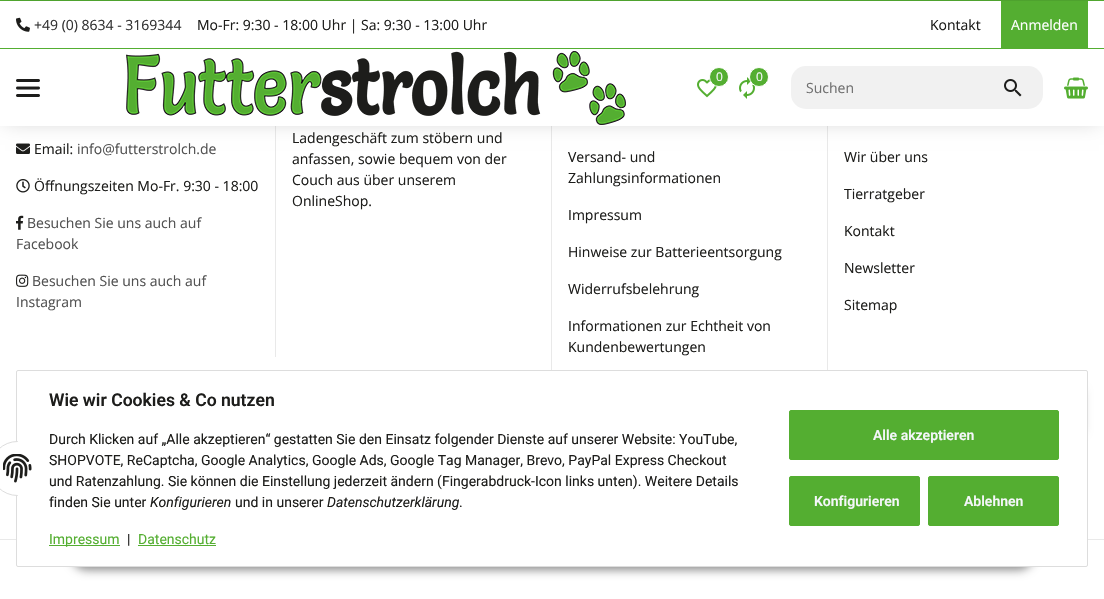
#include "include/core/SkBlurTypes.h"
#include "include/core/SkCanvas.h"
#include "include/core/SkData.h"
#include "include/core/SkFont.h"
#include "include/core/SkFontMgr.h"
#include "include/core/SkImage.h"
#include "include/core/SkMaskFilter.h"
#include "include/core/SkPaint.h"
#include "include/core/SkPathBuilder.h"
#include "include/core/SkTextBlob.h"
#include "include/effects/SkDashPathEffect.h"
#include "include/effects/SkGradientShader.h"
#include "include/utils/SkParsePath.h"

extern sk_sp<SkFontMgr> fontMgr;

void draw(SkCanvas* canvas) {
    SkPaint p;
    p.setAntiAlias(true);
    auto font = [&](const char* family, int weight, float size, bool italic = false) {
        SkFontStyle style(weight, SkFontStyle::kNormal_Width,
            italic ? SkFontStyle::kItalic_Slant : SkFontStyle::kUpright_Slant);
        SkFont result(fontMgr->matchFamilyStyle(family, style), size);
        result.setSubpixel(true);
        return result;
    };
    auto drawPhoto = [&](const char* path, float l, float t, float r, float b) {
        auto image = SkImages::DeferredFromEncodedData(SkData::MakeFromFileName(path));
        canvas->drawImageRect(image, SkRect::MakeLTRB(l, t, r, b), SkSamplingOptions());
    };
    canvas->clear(0xFFFFFFFF);
    p.setColor(0xFF54AE31);
    canvas->drawRect(SkRect::MakeLTRB(0, 0, 1104, 1), p);
    p.setColor(0xFFE9E9E9);
    canvas->drawRect(SkRect::MakeLTRB(275, 126, 276, 357), p);
    drawPhoto("media/8.png", 16, 143, 30, 154);
    canvas->drawRect(SkRect::MakeLTRB(551, 126, 552, 370), p);
    canvas->drawRect(SkRect::MakeLTRB(827, 126, 828, 370), p);
    p.setColor(0x33000000);
    p.setMaskFilter(SkMaskFilter::MakeBlur(kNormal_SkBlurStyle, 10));
    canvas->drawRect(SkRect::MakeLTRB(5, 5, 1099, 121), p);
    p.setMaskFilter(nullptr);
    p.setColor(0xFFFFFFFF);
    canvas->drawRect(SkRect::MakeLTRB(0, 1, 1104, 48), p);
    p.setColor(0xFF54AE31);
    canvas->drawRect(SkRect::MakeLTRB(0, 48, 1104, 49), p);
    drawPhoto("media/1.png", 16, 17, 30, 32);
    auto font1 = font("Open Sans", 400, 14);
    p.setColor(0xFF333333);
    canvas->drawString("+49 (0) 8634 - 3169344", 34, 30, font1, p);
    p.setColor(0xFF1D1D1B);
    canvas->drawString("Mo-Fr: 9:30 - 18:00 Uhr | Sa: 9:30 - 13:00 Uhr", 197, 30, font1, p);
    canvas->drawString("Kontakt", 930, 30, font1, p);
    p.setColor(0xFF54AE31);
    canvas->drawRect(SkRect::MakeLTRB(1001, 1, 1088, 48), p);
    p.setColor(0xFFFFFFFF);
    canvas->drawString("Anmelden", 1011, 30, font1, p);
    canvas->drawRect(SkRect::MakeLTRB(0, 49, 1104, 126), p);
    drawPhoto("media/2.png", 16, 79, 40, 97);
    drawPhoto("media/3.png", 126, 51, 626, 125);
    drawPhoto("media/4.png", 697, 79, 717, 98);
    p.setColor(0xFF54AE31);
    canvas->drawCircle(719, 77, 9.5f, p);
    p.setStyle(SkPaint::kStroke_Style);
    p.setStrokeWidth(1);
    p.setColor(0xFFFFFFFF);
    canvas->drawCircle(719, 77, 9.5f, p);
    auto font2 = font("Open Sans", 400, 12);
    p.setStyle(SkPaint::kFill_Style);
    p.setColor(0xFFF5F7FA);
    canvas->drawString("0", 716, 81, font2, p);
    drawPhoto("media/5.png", 739, 77, 755, 99);
    p.setColor(0xFF54AE31);
    canvas->drawCircle(759, 77, 9.5f, p);
    p.setStyle(SkPaint::kStroke_Style);
    p.setColor(0xFFFFFFFF);
    canvas->drawCircle(759, 77, 9.5f, p);
    p.setStyle(SkPaint::kFill_Style);
    p.setColor(0xFFF5F7FA);
    canvas->drawString("0", 756, 81, font2, p);
    p.setColor(0xFFF1F1F1);
    canvas->drawRoundRect(SkRect::MakeLTRB(791, 66, 1043, 109), 15, 15, p);
    p.setColor(0xFF707070);
    canvas->drawString("Suchen", 806, 93, font1, p);
    drawPhoto("media/6.png", 1004, 79, 1022, 97);
    drawPhoto("media/7.png", 1064, 77, 1088, 99);
    p.setColor(0xFF1D1D1B);
    canvas->drawString("Email:", 34, 154, font1, p);
    p.setColor(0xFF525252);
    canvas->drawString("info@futterstrolch.de", 77, 154, font1, p);
    drawPhoto("media/9.png", 16, 179, 30, 193);
    p.setColor(0xFF1D1D1B);
    canvas->drawString("Öffnungszeiten Mo-Fr. 9:30 - 18:00", 34, 191, font1, p);
    drawPhoto("media/10.png", 16, 215, 24, 230);
    p.setColor(0xFF525252);
    canvas->drawString("Besuchen Sie uns auch auf", 27, 228, font1, p);
    canvas->drawString("Facebook", 16, 249, font1, p);
    drawPhoto("media/11.png", 16, 274, 29, 287);
    canvas->drawString("Besuchen Sie uns auch auf", 32, 286, font1, p);
    canvas->drawString("Instagram", 16, 307, font1, p);
    p.setColor(0xFF1D1D1B);
    {
        const struct { const char* s; float x, y; } items[] = {
            {"Ladengeschäft zum stöbern und", 292, 143},
            {"anfassen, sowie bequem von der", 292, 164},
            {"Couch aus über unserem", 292, 185},
            {"OnlineShop.", 292, 206},
            {"Versand- und", 568, 162},
            {"Zahlungsinformationen", 568, 183},
            {"Impressum", 568, 220},
            {"Hinweise zur Batterieentsorgung", 568, 257},
            {"Widerrufsbelehrung", 568, 294},
            {"Informationen zur Echtheit von", 568, 331},
            {"Kundenbewertungen", 568, 352},
            {"Wir über uns", 844, 162},
            {"Tierratgeber", 844, 199},
            {"Kontakt", 844, 236},
            {"Newsletter", 844, 273},
            {"Sitemap", 844, 310},
        };
        for (auto [s, x, y] : items) {
            canvas->drawString(s, x, y, font1, p);
        }
    }
    p.setColor(0x33000000);
    p.setMaskFilter(SkMaskFilter::MakeBlur(kNormal_SkBlurStyle, 4));
    canvas->drawRoundRect(SkRect::MakeLTRB(1037, 389, 1084, 433), 5, 5, p);
    p.setMaskFilter(nullptr);
    p.setColor(0xFFE9E9E9);
    canvas->drawRect(SkRect::MakeLTRB(0, 539, 1104, 540), p);
    p.setColor(0x73000000);
    p.setMaskFilter(SkMaskFilter::MakeBlur(kNormal_SkBlurStyle, 5));
    canvas->drawRoundRect(SkRect::MakeLTRB(71, 538, 1034, 570), 16, 16, p);
    p.setMaskFilter(nullptr);
    p.setColor(0xFFFFFFFF);
    canvas->drawRoundRect(SkRect::MakeLTRB(16.5f, 370.5f, 1087.5f, 566.5f), 1.5f, 1.5f, p);
    p.setStyle(SkPaint::kStroke_Style);
    p.setColor(0xFFDDDDDD);
    canvas->drawRoundRect(SkRect::MakeLTRB(16.5f, 370.5f, 1087.5f, 566.5f), 1.5f, 1.5f, p);
    p.setStyle(SkPaint::kFill_Style);
    p.setColor(0xFFFFFFFF);
    canvas->drawCircle(17.5f, 468.5f, 27, p);
    p.setStyle(SkPaint::kStroke_Style);
    p.setColor(0xFFDDDDDD);
    canvas->drawCircle(17.5f, 468.5f, 27, p);
    p.setStyle(SkPaint::kFill_Style);
    p.setColor(0xFFFFFFFF);
    canvas->drawRect(SkRect::MakeLTRB(18, 441, 45, 496), p);
    drawPhoto("media/12.png", 3, 454, 32, 483);
    auto font3 = font("Roboto", 600, 17.6f);
    p.setColor(0xFF1D1D1B);
    canvas->drawString("Wie wir Cookies & Co nutzen", 49, 406, font3, p);
    auto font4 = font("Roboto", 400, 14);
    {
        const struct { const char* s; float x, y; } items[] = {
            {"Durch Klicken auf „Alle akzeptieren“ gestatten Sie den Einsatz folgender Dienste auf unserer Website: YouTube,", 49, 444},
            {"SHOPVOTE, ReCaptcha, Google Analytics, Google Ads, Google Tag Manager, Brevo, PayPal Express Checkout", 49, 465},
            {"und Ratenzahlung. Sie können die Einstellung jederzeit ändern (Fingerabdruck-Icon links unten). Weitere Details", 49, 486},
            {"finden Sie unter", 49, 507},
        };
        for (auto [s, x, y] : items) {
            canvas->drawString(s, x, y, font4, p);
        }
    }
    auto font5 = font("Roboto", 400, 14, true);
    canvas->drawString("Konfigurieren", 150, 507, font5, p);
    canvas->drawString("und in unserer", 235, 507, font4, p);
    canvas->drawString("Datenschutzerklärung", 327, 507, font5, p);
    canvas->drawString(".", 459, 507, font4, p);
    p.setColor(0xFF54AE31);
    canvas->drawRect(SkRect::MakeLTRB(49, 545, 120, 546), p);
    canvas->drawString("Impressum", 49, 544, font4, p);
    p.setColor(0xFF1D1D1B);
    canvas->drawString("|", 127, 544, font4, p);
    p.setColor(0xFF54AE31);
    canvas->drawString("Datenschutz", 138, 544, font4, p);
    canvas->drawRect(SkRect::MakeLTRB(138, 545, 216, 546), p);
    canvas->drawRoundRect(SkRect::MakeLTRB(789.5f, 410.5f, 1058.5f, 459.5f), 1.5f, 1.5f, p);
    p.setStyle(SkPaint::kStroke_Style);
    canvas->drawRoundRect(SkRect::MakeLTRB(789.5f, 410.5f, 1058.5f, 459.5f), 1.5f, 1.5f, p);
    auto font6 = font("Roboto", 600, 14);
    p.setStyle(SkPaint::kFill_Style);
    p.setColor(0xFFF5F7FA);
    canvas->drawString("Alle akzeptieren", 873, 440, font6, p);
    p.setColor(0xFF54AE31);
    canvas->drawRoundRect(SkRect::MakeLTRB(789.5f, 476.5f, 919.5f, 525.5f), 1.5f, 1.5f, p);
    p.setStyle(SkPaint::kStroke_Style);
    canvas->drawRoundRect(SkRect::MakeLTRB(789.5f, 476.5f, 919.5f, 525.5f), 1.5f, 1.5f, p);
    p.setStyle(SkPaint::kFill_Style);
    p.setColor(0xFFF5F7FA);
    canvas->drawString("Konfigurieren", 814, 506, font6, p);
    p.setColor(0xFF54AE31);
    canvas->drawRoundRect(SkRect::MakeLTRB(928.5f, 476.5f, 1058.5f, 525.5f), 1.5f, 1.5f, p);
    p.setStyle(SkPaint::kStroke_Style);
    canvas->drawRoundRect(SkRect::MakeLTRB(928.5f, 476.5f, 1058.5f, 525.5f), 1.5f, 1.5f, p);
    p.setStyle(SkPaint::kFill_Style);
    p.setColor(0xFFF5F7FA);
    canvas->drawString("Ablehnen", 964, 506, font6, p);
}
